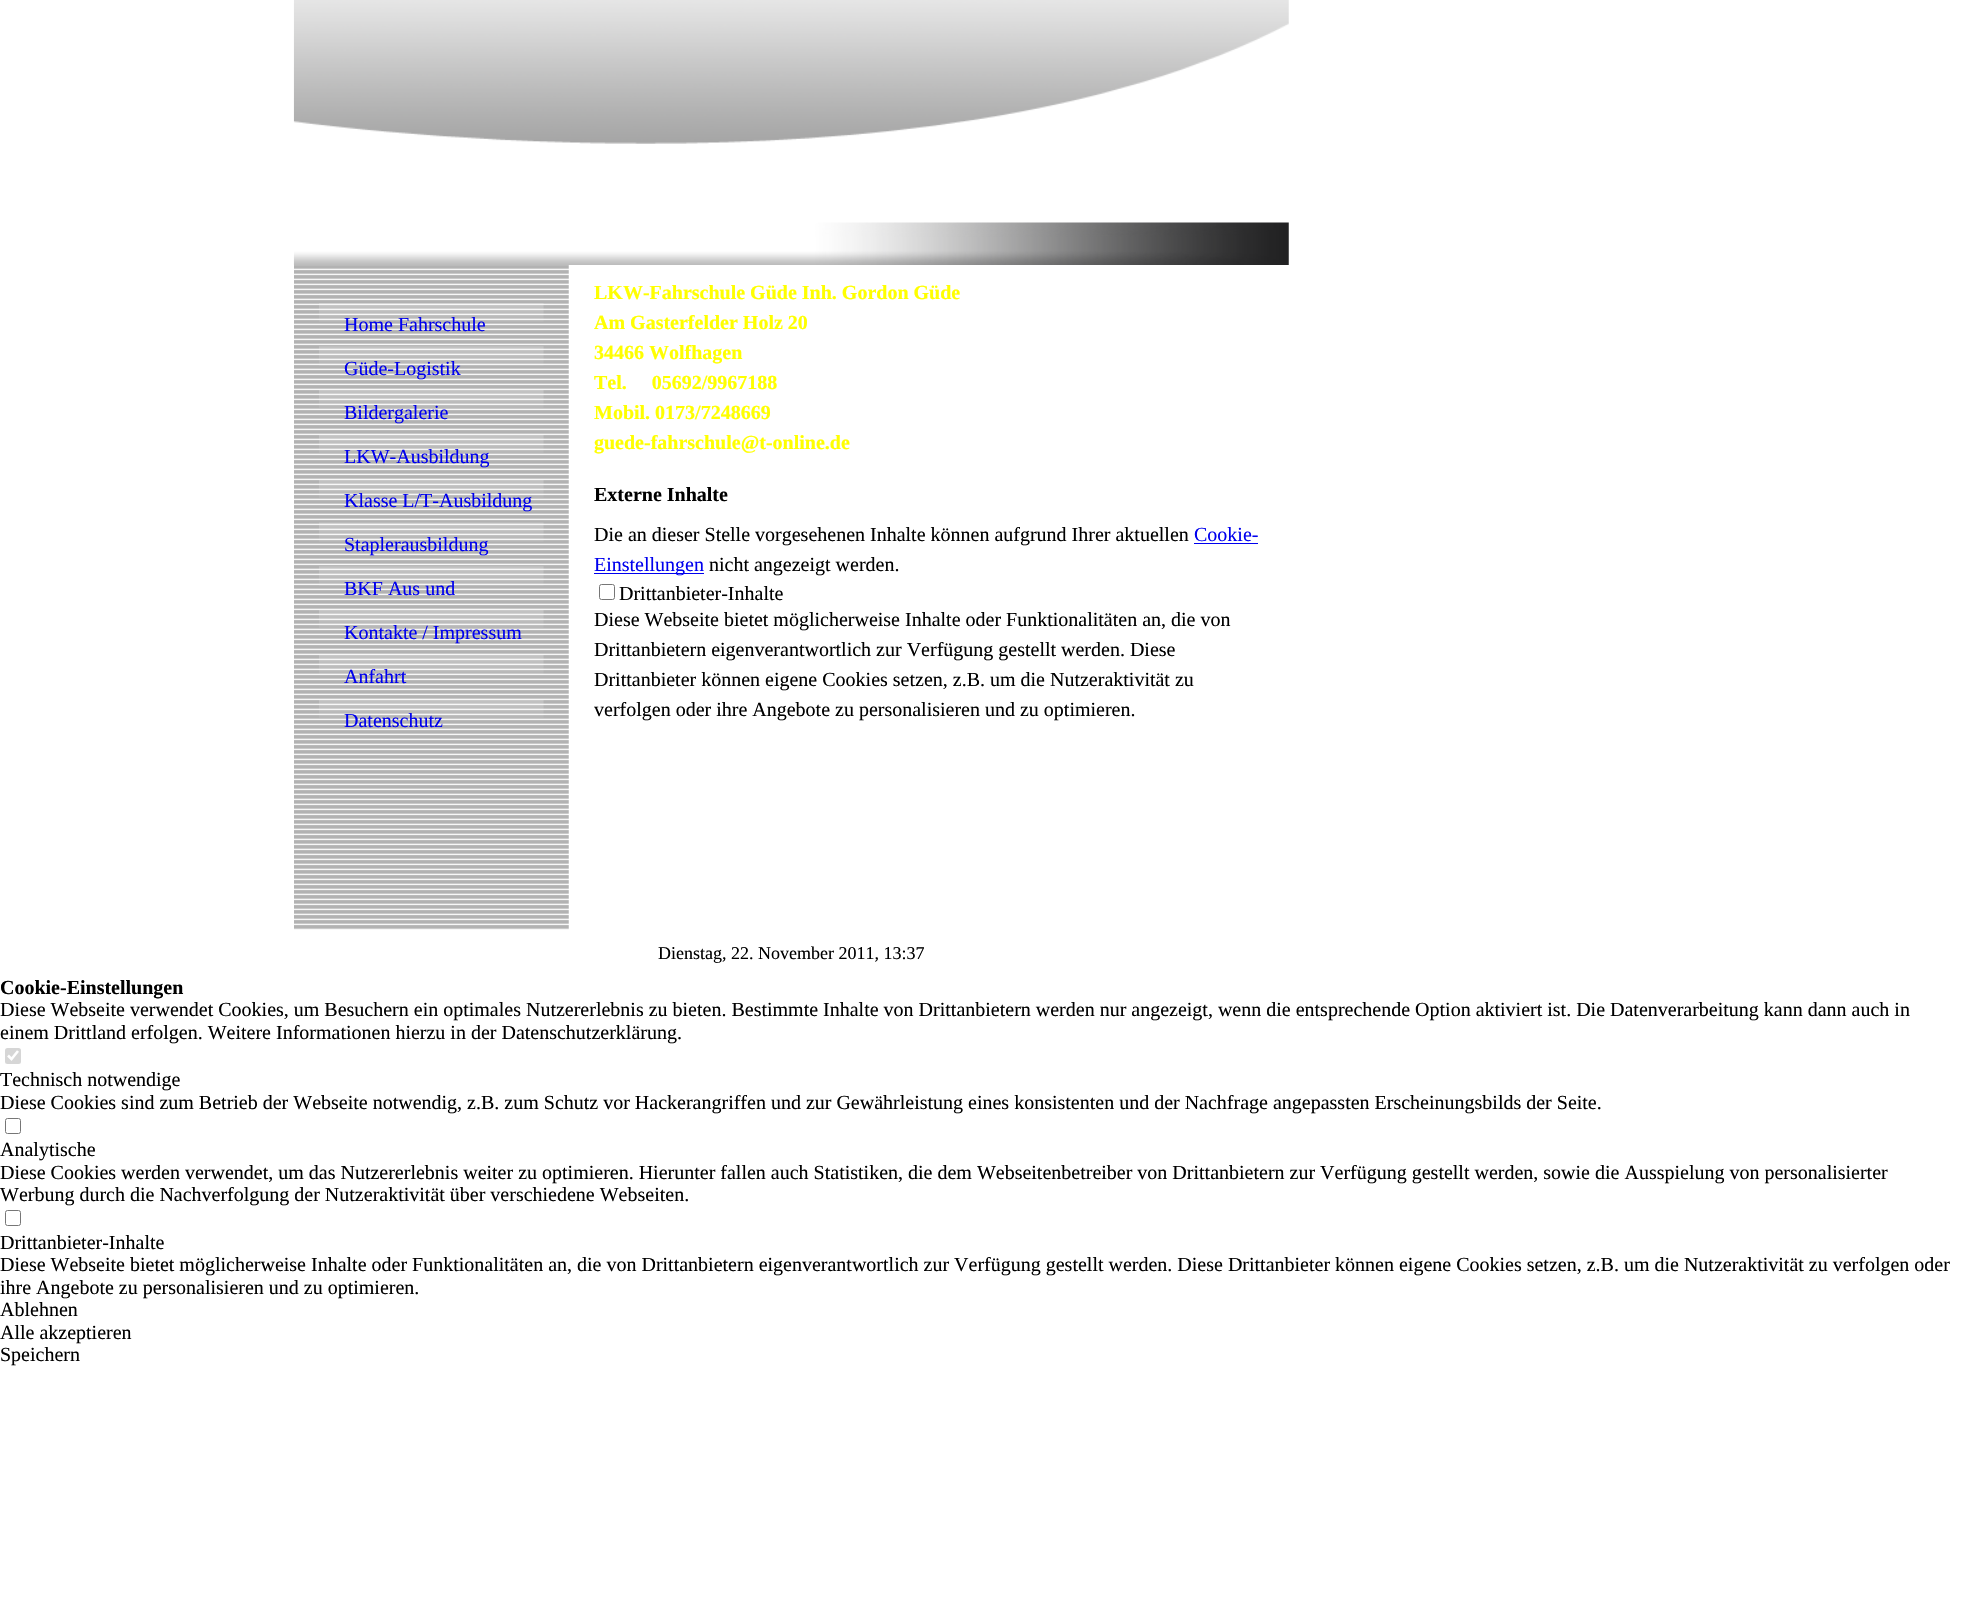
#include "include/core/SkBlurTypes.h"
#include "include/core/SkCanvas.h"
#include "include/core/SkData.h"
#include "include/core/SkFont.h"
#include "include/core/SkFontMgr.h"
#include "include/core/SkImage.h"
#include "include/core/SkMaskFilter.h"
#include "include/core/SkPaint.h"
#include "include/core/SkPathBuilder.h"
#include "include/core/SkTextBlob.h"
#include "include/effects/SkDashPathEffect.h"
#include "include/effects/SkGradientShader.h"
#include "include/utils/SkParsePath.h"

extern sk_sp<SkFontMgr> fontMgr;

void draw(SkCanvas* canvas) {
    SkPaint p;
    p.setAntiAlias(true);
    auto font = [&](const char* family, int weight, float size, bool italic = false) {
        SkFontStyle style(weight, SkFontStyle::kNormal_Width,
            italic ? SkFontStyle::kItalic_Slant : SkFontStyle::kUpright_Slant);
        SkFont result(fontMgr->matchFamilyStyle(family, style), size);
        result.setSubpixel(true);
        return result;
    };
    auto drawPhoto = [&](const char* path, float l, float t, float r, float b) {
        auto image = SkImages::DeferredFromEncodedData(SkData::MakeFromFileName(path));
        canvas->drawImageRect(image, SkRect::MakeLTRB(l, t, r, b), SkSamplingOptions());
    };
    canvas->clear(0xFFFFFFFF);
    drawPhoto("media/1.png", 293, 0, 1289, 265);
    drawPhoto("media/2.png", 294, 265, 569, 930);
    drawPhoto("media/3.png", 319, 303, 544, 322);
    auto font1 = font("Liberation Serif", 400, 20);
    p.setColor(0xFF0000EE);
    canvas->drawString("Home Fahrschule", 344, 331, font1, p);
    drawPhoto("media/4.png", 319, 346, 544, 366);
    canvas->drawString("Güde-Logistik", 344, 375, font1, p);
    drawPhoto("media/5.png", 319, 390, 544, 408);
    canvas->drawString("Bildergalerie", 344, 419, font1, p);
    drawPhoto("media/5.png", 319, 435, 544, 453);
    canvas->drawString("LKW-Ausbildung", 344, 463, font1, p);
    drawPhoto("media/6.png", 319, 480, 544, 498);
    canvas->drawString("Klasse L/T-Ausbildung", 344, 507, font1, p);
    drawPhoto("media/7.png", 319, 522, 544, 542);
    canvas->drawString("Staplerausbildung", 344, 551, font1, p);
    drawPhoto("media/4.png", 319, 566, 544, 586);
    canvas->drawString("BKF Aus und", 344, 595, font1, p);
    drawPhoto("media/5.png", 319, 610, 544, 628);
    canvas->drawString("Kontakte / Impressum", 344, 639, font1, p);
    drawPhoto("media/8.png", 319, 655, 544, 674);
    canvas->drawString("Anfahrt", 344, 683, font1, p);
    drawPhoto("media/6.png", 319, 700, 544, 718);
    canvas->drawString("Datenschutz", 344, 727, font1, p);
    auto font2 = font("Liberation Serif", 700, 20);
    p.setColor(0xFFFFFF00);
    {
        const struct { const char* s; float x, y; } items[] = {
            {"LKW-Fahrschule Güde Inh. Gordon Güde", 594, 299},
            {"Am Gasterfelder Holz 20", 594, 329},
            {"34466 Wolfhagen", 594, 359},
            {"Tel.     05692/9967188", 594, 389},
            {"Mobil. 0173/7248669", 594, 419},
            {"guede-fahrschule@t-online.de", 594, 449},
        };
        for (auto [s, x, y] : items) {
            canvas->drawString(s, x, y, font2, p);
        }
    }
    p.setColor(0xFF000000);
    canvas->drawString("Externe Inhalte", 594, 501, font2, p);
    canvas->drawString("Die an dieser Stelle vorgesehenen Inhalte können aufgrund Ihrer aktuellen", 594, 541, font1, p);
    p.setColor(0xFF0000EE);
    canvas->drawString("Cookie-", 1194, 541, font1, p);
    canvas->drawRect(SkRect::MakeLTRB(1194, 543, 1258, 544), p);
    canvas->drawRect(SkRect::MakeLTRB(594, 573, 704, 574), p);
    canvas->drawString("Einstellungen", 594, 571, font1, p);
    p.setColor(0xFF000000);
    canvas->drawString("nicht angezeigt werden.", 709, 571, font1, p);
    p.setStyle(SkPaint::kStroke_Style);
    p.setStrokeWidth(1);
    p.setColor(0xFF767676);
    canvas->drawRoundRect(SkRect::MakeLTRB(599.5f, 584.5f, 614.5f, 599.5f), 2, 2, p);
    p.setStyle(SkPaint::kFill_Style);
    p.setColor(0xFF000000);
    {
        const struct { const char* s; float x, y; } items[] = {
            {"Drittanbieter-Inhalte", 619, 600},
            {"Diese Webseite bietet möglicherweise Inhalte oder Funktionalitäten an, die von", 594, 626},
            {"Drittanbietern eigenverantwortlich zur Verfügung gestellt werden. Diese", 594, 656},
            {"Drittanbieter können eigene Cookies setzen, z.B. um die Nutzeraktivität zu", 594, 686},
            {"verfolgen oder ihre Angebote zu personalisieren und zu optimieren.", 594, 716},
        };
        for (auto [s, x, y] : items) {
            canvas->drawString(s, x, y, font1, p);
        }
    }
    auto font3 = font("Liberation Serif", 400, 18);
    canvas->drawString("Dienstag, 22. November 2011, 13:37", 658, 959, font3, p);
    canvas->drawString("Cookie-Einstellungen", 0, 994, font2, p);
    canvas->drawString("Diese Webseite verwendet Cookies, um Besuchern ein optimales Nutzererlebnis zu bieten. Bestimmte Inhalte von Drittanbietern werden nur angezeigt, wenn die entsprechende Option aktiviert ist. Die Datenverarbeitung kann dann auch in", 0, 1016, font1, p);
    canvas->drawString("einem Drittland erfolgen. Weitere Informationen hierzu in der Datenschutzerklärung.", 0, 1039, font1, p);
    p.setColor(0xFFD6D6D6);
    canvas->drawRoundRect(SkRect::MakeLTRB(5, 1048, 21, 1064), 2.5f, 2.5f, p);
    p.setStyle(SkPaint::kStroke_Style);
    p.setStrokeWidth(2.6f);
    p.setColor(0xFFFFFFFF);
    canvas->drawPath(SkPathBuilder().moveTo(8, 1055.5f).lineTo(11.5f, 1059).lineTo(18, 1051).detach(), p);
    p.setStyle(SkPaint::kFill_Style);
    p.setColor(0xFF000000);
    canvas->drawString("Technisch notwendige", 0, 1086, font1, p);
    canvas->drawString("Diese Cookies sind zum Betrieb der Webseite notwendig, z.B. zum Schutz vor Hackerangriffen und zur Gewährleistung eines konsistenten und der Nachfrage angepassten Erscheinungsbilds der Seite.", 0, 1109, font1, p);
    p.setStyle(SkPaint::kStroke_Style);
    p.setStrokeWidth(1);
    p.setColor(0xFF767676);
    canvas->drawRoundRect(SkRect::MakeLTRB(5.5f, 1118.5f, 20.5f, 1133.5f), 2, 2, p);
    p.setStyle(SkPaint::kFill_Style);
    p.setColor(0xFF000000);
    {
        const struct { const char* s; float x, y; } items[] = {
            {"Analytische", 0, 1156},
            {"Diese Cookies werden verwendet, um das Nutzererlebnis weiter zu optimieren. Hierunter fallen auch Statistiken, die dem Webseitenbetreiber von Drittanbietern zur Verfügung gestellt werden, sowie die Ausspielung von personalisierter", 0, 1179},
            {"Werbung durch die Nachverfolgung der Nutzeraktivität über verschiedene Webseiten.", 0, 1201},
        };
        for (auto [s, x, y] : items) {
            canvas->drawString(s, x, y, font1, p);
        }
    }
    p.setStyle(SkPaint::kStroke_Style);
    p.setColor(0xFF767676);
    canvas->drawRoundRect(SkRect::MakeLTRB(5.5f, 1210.5f, 20.5f, 1225.5f), 2, 2, p);
    p.setStyle(SkPaint::kFill_Style);
    p.setColor(0xFF000000);
    {
        const struct { const char* s; float x, y; } items[] = {
            {"Drittanbieter-Inhalte", 0, 1249},
            {"Diese Webseite bietet möglicherweise Inhalte oder Funktionalitäten an, die von Drittanbietern eigenverantwortlich zur Verfügung gestellt werden. Diese Drittanbieter können eigene Cookies setzen, z.B. um die Nutzeraktivität zu verfolgen oder", 0, 1271},
            {"ihre Angebote zu personalisieren und zu optimieren.", 0, 1294},
            {"Ablehnen", 0, 1316},
            {"Alle akzeptieren", 0, 1339},
            {"Speichern", 0, 1361},
        };
        for (auto [s, x, y] : items) {
            canvas->drawString(s, x, y, font1, p);
        }
    }
}
